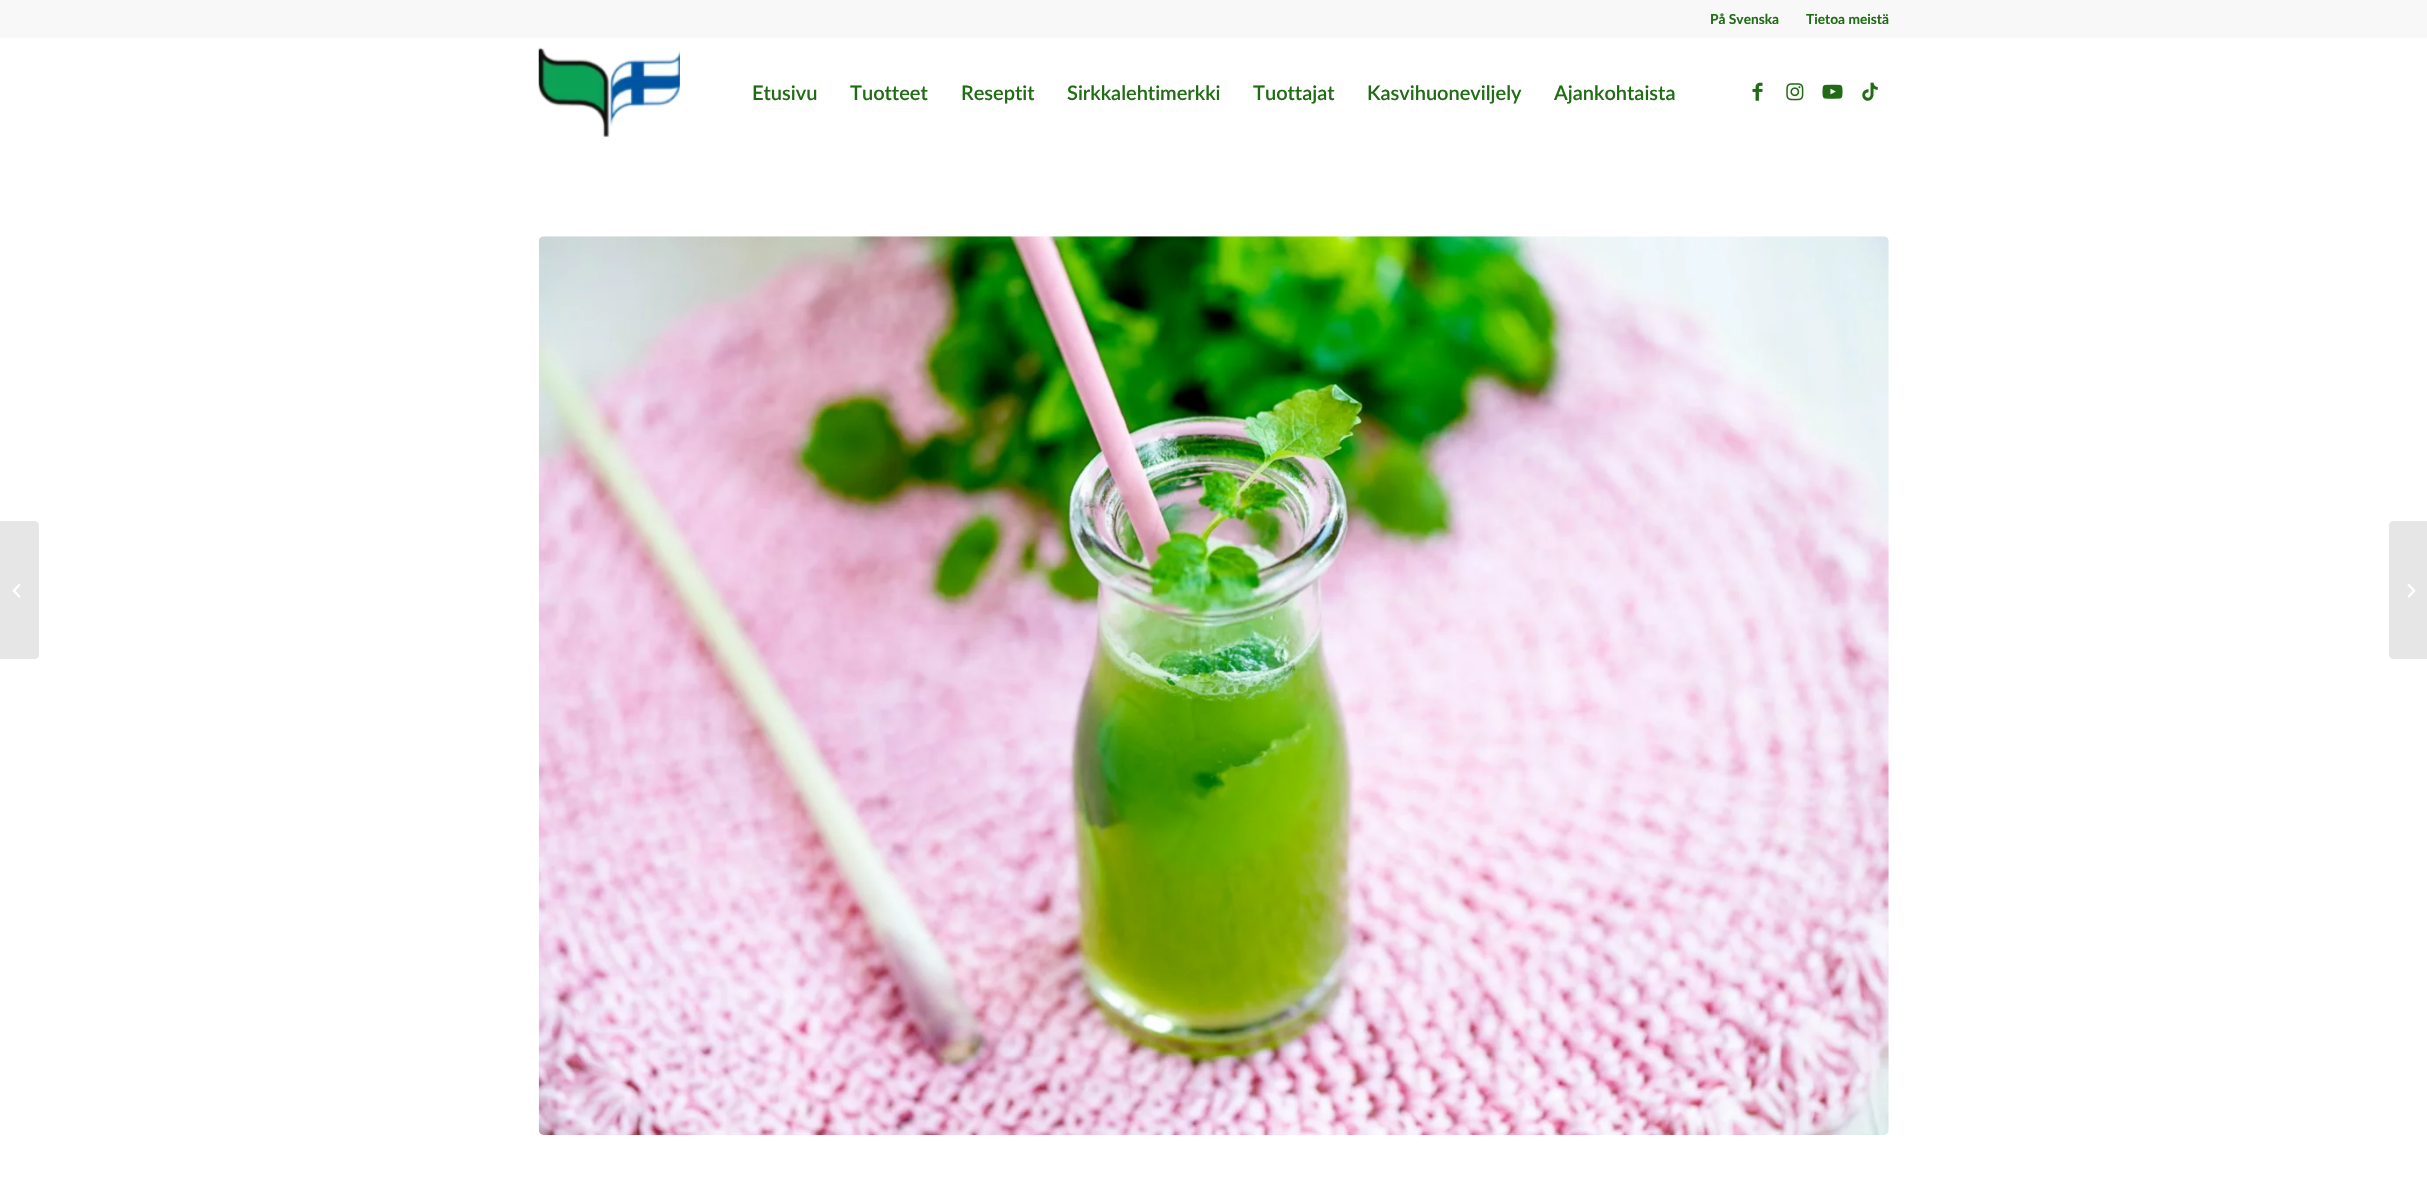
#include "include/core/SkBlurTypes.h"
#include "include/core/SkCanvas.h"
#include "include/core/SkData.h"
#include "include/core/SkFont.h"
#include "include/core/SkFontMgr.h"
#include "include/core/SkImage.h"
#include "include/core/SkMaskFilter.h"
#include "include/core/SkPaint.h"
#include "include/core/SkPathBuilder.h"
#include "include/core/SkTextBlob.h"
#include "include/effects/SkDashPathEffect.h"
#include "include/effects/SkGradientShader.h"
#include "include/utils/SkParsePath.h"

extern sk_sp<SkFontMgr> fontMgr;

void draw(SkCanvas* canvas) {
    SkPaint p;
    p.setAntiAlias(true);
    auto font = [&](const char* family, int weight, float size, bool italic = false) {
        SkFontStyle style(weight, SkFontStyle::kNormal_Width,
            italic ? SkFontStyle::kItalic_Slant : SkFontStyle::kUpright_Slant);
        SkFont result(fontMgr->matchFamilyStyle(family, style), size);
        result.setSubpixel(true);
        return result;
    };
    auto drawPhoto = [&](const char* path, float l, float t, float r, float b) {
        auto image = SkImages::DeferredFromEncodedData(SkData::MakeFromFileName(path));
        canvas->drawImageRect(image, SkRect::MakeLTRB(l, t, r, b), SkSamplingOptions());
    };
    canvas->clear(0xFFFFFFFF);
    p.setColor(0xFFF8F8F8);
    canvas->drawRect(SkRect::MakeLTRB(0, 0, 2427, 38), p);
    auto font1 = font("Lato", 700, 13.75f);
    p.setColor(0xFF206C14);
    canvas->drawString("På Svenska", 1710, 24, font1, p);
    canvas->drawString("Tietoa meistä", 1806, 24, font1, p);
    drawPhoto("media/1.png", 538, 47, 680, 137);
    auto font2 = font("Lato", 600, 20);
    {
        const struct { const char* s; float x, y; } items[] = {
            {"Etusivu", 752, 100},
            {"Tuotteet", 850, 100},
            {"Reseptit", 961, 100},
            {"Sirkkalehtimerkki", 1067, 100},
            {"Tuottajat", 1253, 100},
            {"Kasvihuoneviljely", 1367, 100},
            {"Ajankohtaista", 1554, 100},
        };
        for (auto [s, x, y] : items) {
            canvas->drawString(s, x, y, font2, p);
        }
    }
    drawPhoto("media/2.png", 1752, 82, 1763, 101);
    drawPhoto("media/3.png", 1786, 83, 1804, 101);
    drawPhoto("media/4.png", 1822, 84, 1843, 99);
    drawPhoto("media/5.png", 1862, 82, 1878, 101);
    p.setColor(0xFFE6E6E6);
    canvas->drawPath(SkPathBuilder().moveTo(0, 521).lineTo(34, 521).cubicTo(37, 521, 39, 523, 39, 526).lineTo(39, 654).cubicTo(39, 657, 37, 659, 34, 659).lineTo(0, 659).close().detach(), p);
    drawPhoto("media/6.png", 12, 584, 21, 598);
    drawPhoto("media/7.png", 538, 236, 1889, 1135);
    canvas->drawPath(SkPathBuilder().moveTo(2394, 521).lineTo(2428, 521).lineTo(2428, 659).lineTo(2394, 659).cubicTo(2391, 659, 2389, 657, 2389, 654).lineTo(2389, 526).cubicTo(2389, 523, 2391, 521, 2394, 521).close().detach(), p);
    drawPhoto("media/8.png", 2407, 584, 2416, 598);
}
